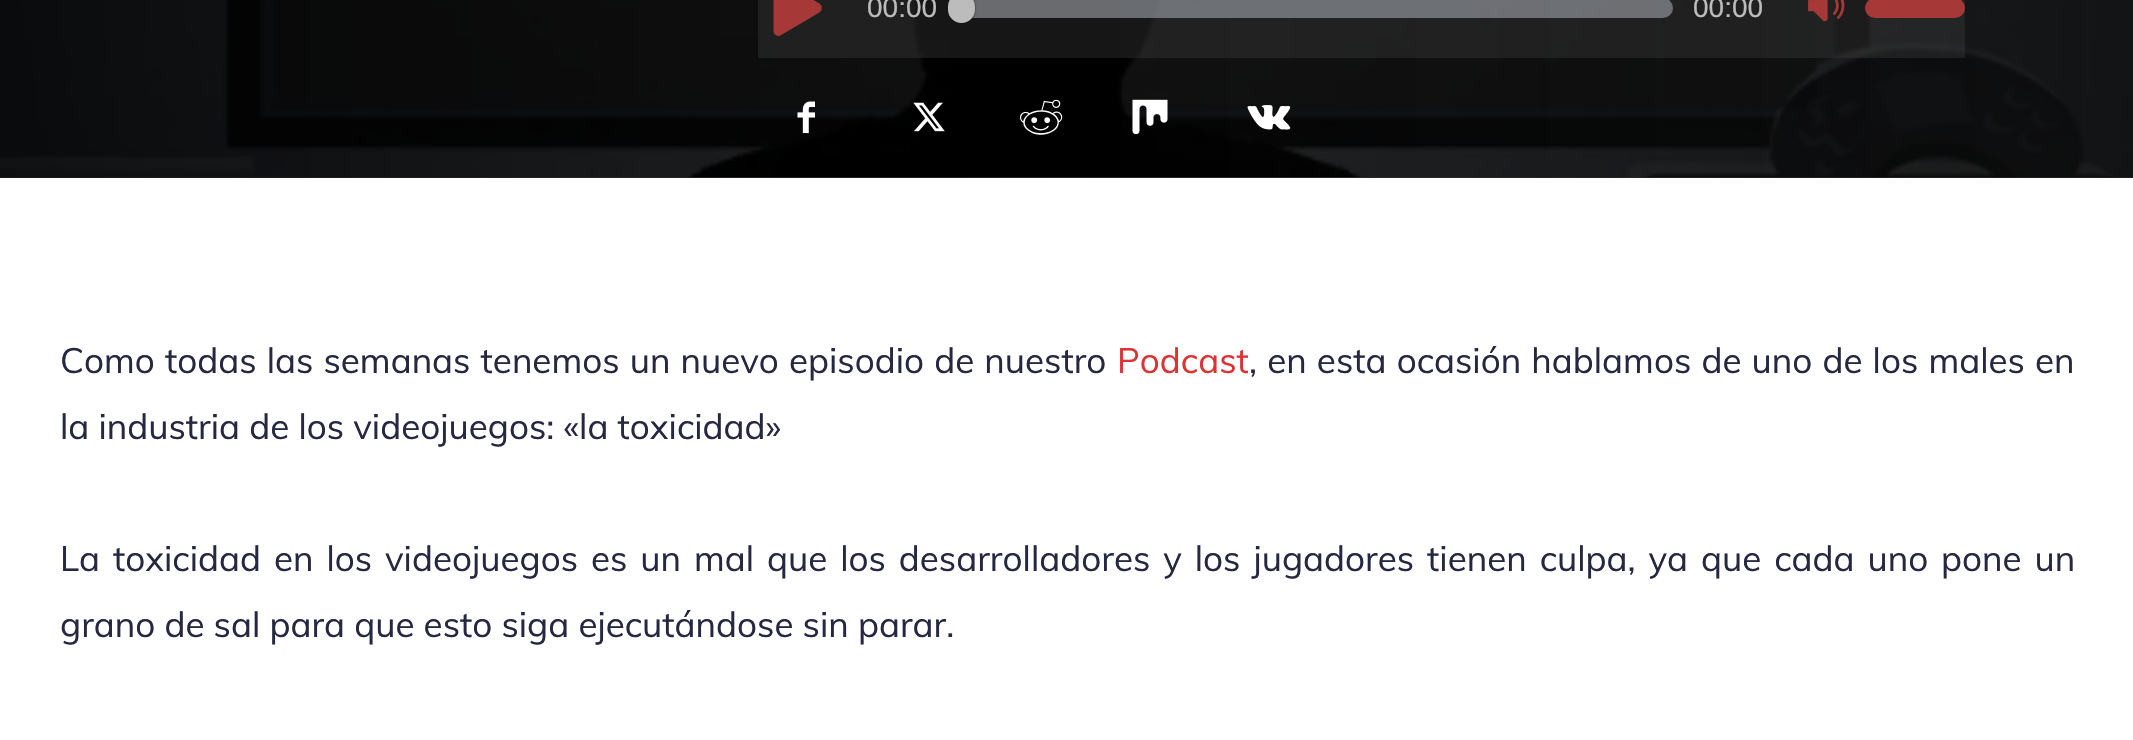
#include "include/core/SkBlurTypes.h"
#include "include/core/SkCanvas.h"
#include "include/core/SkData.h"
#include "include/core/SkFont.h"
#include "include/core/SkFontMgr.h"
#include "include/core/SkImage.h"
#include "include/core/SkMaskFilter.h"
#include "include/core/SkPaint.h"
#include "include/core/SkPathBuilder.h"
#include "include/core/SkTextBlob.h"
#include "include/effects/SkDashPathEffect.h"
#include "include/effects/SkGradientShader.h"
#include "include/utils/SkParsePath.h"

extern sk_sp<SkFontMgr> fontMgr;

void draw(SkCanvas* canvas) {
    SkPaint p;
    p.setAntiAlias(true);
    auto font = [&](const char* family, int weight, float size, bool italic = false) {
        SkFontStyle style(weight, SkFontStyle::kNormal_Width,
            italic ? SkFontStyle::kItalic_Slant : SkFontStyle::kUpright_Slant);
        SkFont result(fontMgr->matchFamilyStyle(family, style), size);
        result.setSubpixel(true);
        return result;
    };
    auto drawTracked = [&](const char* s, float x, float y, const SkFont& font, const SkPaint& ink, float letter, float word) {
        std::vector<SkGlyphID> glyphs(font.countText(s, strlen(s), SkTextEncoding::kUTF8));
        std::vector<float> xs(glyphs.size());
        font.textToGlyphs(s, strlen(s), SkTextEncoding::kUTF8, glyphs);
        font.getXPos(glyphs, xs, x);
        float extra = 0;
        for (size_t i = 0; i < glyphs.size(); i++) {
            xs[i] += extra;
            extra += letter + word * (glyphs[i] == font.unicharToGlyph(' '));
        }
        canvas->drawTextBlob(SkTextBlob::MakeFromPosHGlyphs(glyphs, xs, y, font), 0, 0, ink);
    };
    auto drawPhoto = [&](const char* path, float l, float t, float r, float b) {
        auto image = SkImages::DeferredFromEncodedData(SkData::MakeFromFileName(path));
        canvas->drawImageRect(image, SkRect::MakeLTRB(l, t, r, b), SkSamplingOptions());
    };
    canvas->clear(0xFFFFFFFF);
    drawPhoto("media/1.png", 0, 0, 2133, 178);
    {
        const SkColor colors[] = {0xE6000000, 0xCC000000, 0xE60A0A0A};
        const float stops[] = {0, 0.5f, 1};
        const SkPoint ends[] = {{0, -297}, {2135, -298}};
        p.setShader(SkGradientShader::MakeLinear(ends, colors, stops, 3, SkTileMode::kClamp));
        p.setAlpha(255);
    }
    canvas->drawRect(SkRect::MakeLTRB(0, 0, 2133, 178), p);
    drawPhoto("media/2.png", 773, 0, 822, 36);
    auto font1 = font("Liberation Sans", 400, 28);
    p.setShader(nullptr);
    p.setColor(0xFFFFFFFF);
    canvas->drawString("00:00", 867, 17, font1, p);
    p.setColor(0x99D3DBE4);
    canvas->drawRoundRect(SkRect::MakeLTRB(958, -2, 1673, 18), 10, 10, p);
    p.setColor(0xFF000000);
    p.setMaskFilter(SkMaskFilter::MakeBlur(kNormal_SkBlurStyle, 1));
    canvas->drawRoundRect(SkRect::MakeLTRB(948, -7, 975, 23), 13.5f, 13.5f, p);
    p.setMaskFilter(nullptr);
    p.setColor(0xFFFFFFFF);
    canvas->drawRoundRect(SkRect::MakeLTRB(952, -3, 971, 19), 9.5f, 9.5f, p);
    p.setStyle(SkPaint::kStroke_Style);
    p.setStrokeWidth(8);
    canvas->drawRoundRect(SkRect::MakeLTRB(952, -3, 971, 19), 9.5f, 9.5f, p);
    p.setStyle(SkPaint::kFill_Style);
    canvas->drawString("00:00", 1693, 17, font1, p);
    drawPhoto("media/3.png", 1808, 0, 1845, 22);
    p.setColor(0xFFDD3333);
    canvas->drawRoundRect(SkRect::MakeLTRB(1865, -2, 1965, 18), 10, 10, p);
    p.setColor(0x593F3F3F);
    canvas->drawRect(SkRect::MakeLTRB(758, 0, 1965, 58), p);
    drawPhoto("media/4.png", 797, 101, 815, 134);
    drawPhoto("media/5.png", 913, 102, 945, 132);
    drawPhoto("media/6.png", 1020, 99, 1063, 135);
    drawPhoto("media/7.png", 1132, 99, 1168, 135);
    drawPhoto("media/8.png", 1247, 105, 1291, 130);
    auto font2 = font("Muli", 400, 35);
    p.setColor(0xFF252840);
    drawTracked("Como todas las semanas tenemos un nuevo episodio de nuestro", 60, 373, font2, p, 0, 1);
    p.setColor(0xFFDD3333);
    canvas->drawString("Podcast", 1117, 373, font2, p);
    p.setColor(0xFF252840);
    drawTracked(", en esta ocasión hablamos de uno de los males en", 1249, 373, font2, p, 0, 1);
    canvas->drawString("la industria de los videojuegos: «la toxicidad»", 60, 439, font2, p);
    drawTracked("La toxicidad en los videojuegos es un mal que los desarrolladores y los jugadores tienen culpa, ya que cada uno pone un", 60, 571, font2, p, 0, 3.8f);
    canvas->drawString("grano de sal para que esto siga ejecutándose sin parar.", 60, 637, font2, p);
}
